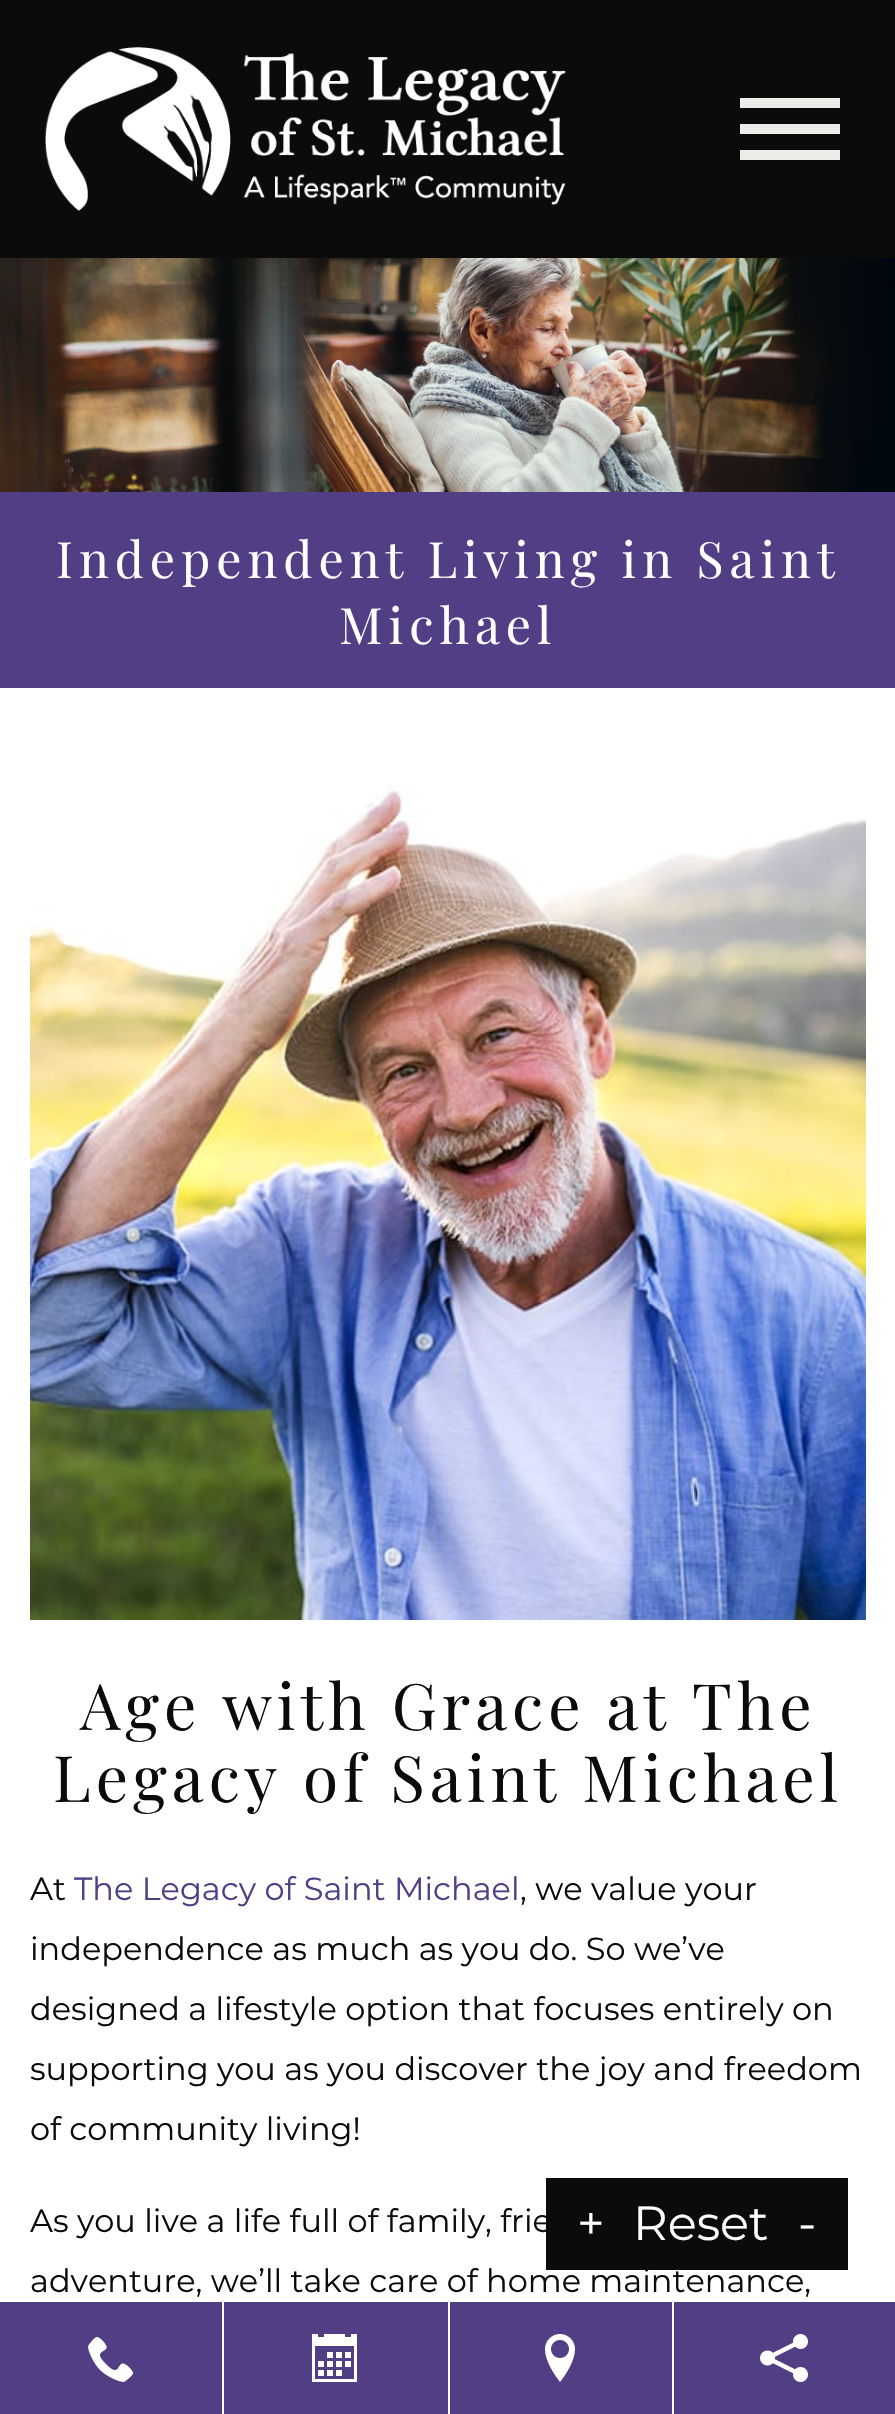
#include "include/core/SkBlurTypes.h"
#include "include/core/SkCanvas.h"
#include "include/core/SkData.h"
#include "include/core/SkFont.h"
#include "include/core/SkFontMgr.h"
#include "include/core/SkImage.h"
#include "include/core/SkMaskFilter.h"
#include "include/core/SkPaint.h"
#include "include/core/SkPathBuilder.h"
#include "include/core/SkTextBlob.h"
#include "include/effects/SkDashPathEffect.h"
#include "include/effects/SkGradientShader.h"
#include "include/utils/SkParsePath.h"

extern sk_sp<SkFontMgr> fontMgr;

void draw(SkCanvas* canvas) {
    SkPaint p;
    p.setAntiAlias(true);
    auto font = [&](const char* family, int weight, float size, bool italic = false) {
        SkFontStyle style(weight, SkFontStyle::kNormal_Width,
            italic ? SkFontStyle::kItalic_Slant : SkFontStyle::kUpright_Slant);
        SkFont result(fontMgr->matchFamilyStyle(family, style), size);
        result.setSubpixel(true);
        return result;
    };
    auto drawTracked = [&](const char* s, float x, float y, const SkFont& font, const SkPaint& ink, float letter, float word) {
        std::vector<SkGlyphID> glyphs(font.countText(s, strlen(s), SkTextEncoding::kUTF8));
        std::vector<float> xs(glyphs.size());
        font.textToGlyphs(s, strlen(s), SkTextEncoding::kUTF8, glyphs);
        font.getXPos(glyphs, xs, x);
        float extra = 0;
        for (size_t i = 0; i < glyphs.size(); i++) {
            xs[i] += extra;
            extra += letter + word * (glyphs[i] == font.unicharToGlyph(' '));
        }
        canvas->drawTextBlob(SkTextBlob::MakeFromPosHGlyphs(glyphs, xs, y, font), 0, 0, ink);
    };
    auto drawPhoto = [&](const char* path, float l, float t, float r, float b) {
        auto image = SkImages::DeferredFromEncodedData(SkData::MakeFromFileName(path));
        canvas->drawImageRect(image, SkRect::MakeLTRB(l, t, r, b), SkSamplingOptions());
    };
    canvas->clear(0xFFFFFFFF);
    p.setColor(0xFF0C0B0B);
    canvas->drawRect(SkRect::MakeLTRB(0, 0, 895, 258), p);
    drawPhoto("media/1.png", 44, 47, 566, 211);
    {
        const struct { float l, t, r, b; SkColor color; } items[] = {
            {740, 98, 840, 108, 0xFFEDEBE7},
            {740, 124, 840, 134, 0xFFEDEBE7},
            {740, 150, 840, 160, 0xFFEDEBE7},
        };
        for (auto [l, t, r, b, color] : items) {
            p.setColor(color);
            canvas->drawRect(SkRect::MakeLTRB(l, t, r, b), p);
        }
    }
    drawPhoto("media/2.png", 0, 258, 895, 492);
    p.setColor(0xFF513E84);
    canvas->drawRect(SkRect::MakeLTRB(0, 492, 895, 688), p);
    auto font1 = font("Playfair Display", 400, 50);
    p.setColor(0xFFFFFFFF);
    drawTracked("Independent Living in Saint", 56, 578, font1, p, 6, 0);
    drawTracked("Michael", 339, 644, font1, p, 6, 0);
    drawPhoto("media/3.png", 30, 784, 866, 1620);
    auto font2 = font("Playfair Display", 400, 64);
    p.setColor(0xFF0C0B0B);
    drawTracked("Age with Grace at The", 80, 1730, font2, p, 5, 0);
    drawTracked("Legacy of Saint Michael", 53, 1802, font2, p, 5, 0);
    auto font3 = font("Montserrat", 400, 32);
    canvas->drawString("At", 30, 1900, font3, p);
    p.setColor(0xFF513E84);
    canvas->drawString("The Legacy of Saint Michael", 74, 1900, font3, p);
    p.setColor(0xFF0C0B0B);
    {
        const struct { const char* s; float x, y; } items[] = {
            {", we value your", 520, 1900},
            {"independence as much as you do. So we’ve", 30, 1960},
            {"designed a lifestyle option that focuses entirely on", 30, 2020},
            {"supporting you as you discover the joy and freedom", 30, 2080},
            {"of community living!", 30, 2140},
            {"As you live a life full of family, frie", 30, 2232},
            {"adventure, we’ll take care of home maintenance,", 30, 2292},
        };
        for (auto [s, x, y] : items) {
            canvas->drawString(s, x, y, font3, p);
        }
    }
    canvas->drawRect(SkRect::MakeLTRB(546, 2178, 848, 2270), p);
    auto font4 = font("Montserrat", 400, 48);
    p.setColor(0xFFFFFFFF);
    {
        const struct { const char* s; float x, y; } items[] = {
            {"+", 577, 2240},
            {"Reset", 633, 2240},
            {"-", 798, 2240},
        };
        for (auto [s, x, y] : items) {
            canvas->drawString(s, x, y, font4, p);
        }
    }
    p.setColor(0xFF513E84);
    canvas->drawRect(SkRect::MakeLTRB(0, 2302, 895, 2414), p);
    p.setColor(0xFFFFFFFF);
    canvas->drawRect(SkRect::MakeLTRB(222, 2302, 224, 2414), p);
    drawPhoto("media/4.png", 88, 2337, 133, 2382);
    canvas->drawRect(SkRect::MakeLTRB(448, 2302, 450, 2414), p);
    drawPhoto("media/5.png", 312, 2334, 357, 2382);
    canvas->drawRect(SkRect::MakeLTRB(672, 2302, 674, 2414), p);
    drawPhoto("media/6.png", 545, 2334, 575, 2382);
    drawPhoto("media/7.png", 760, 2334, 808, 2382);
}
